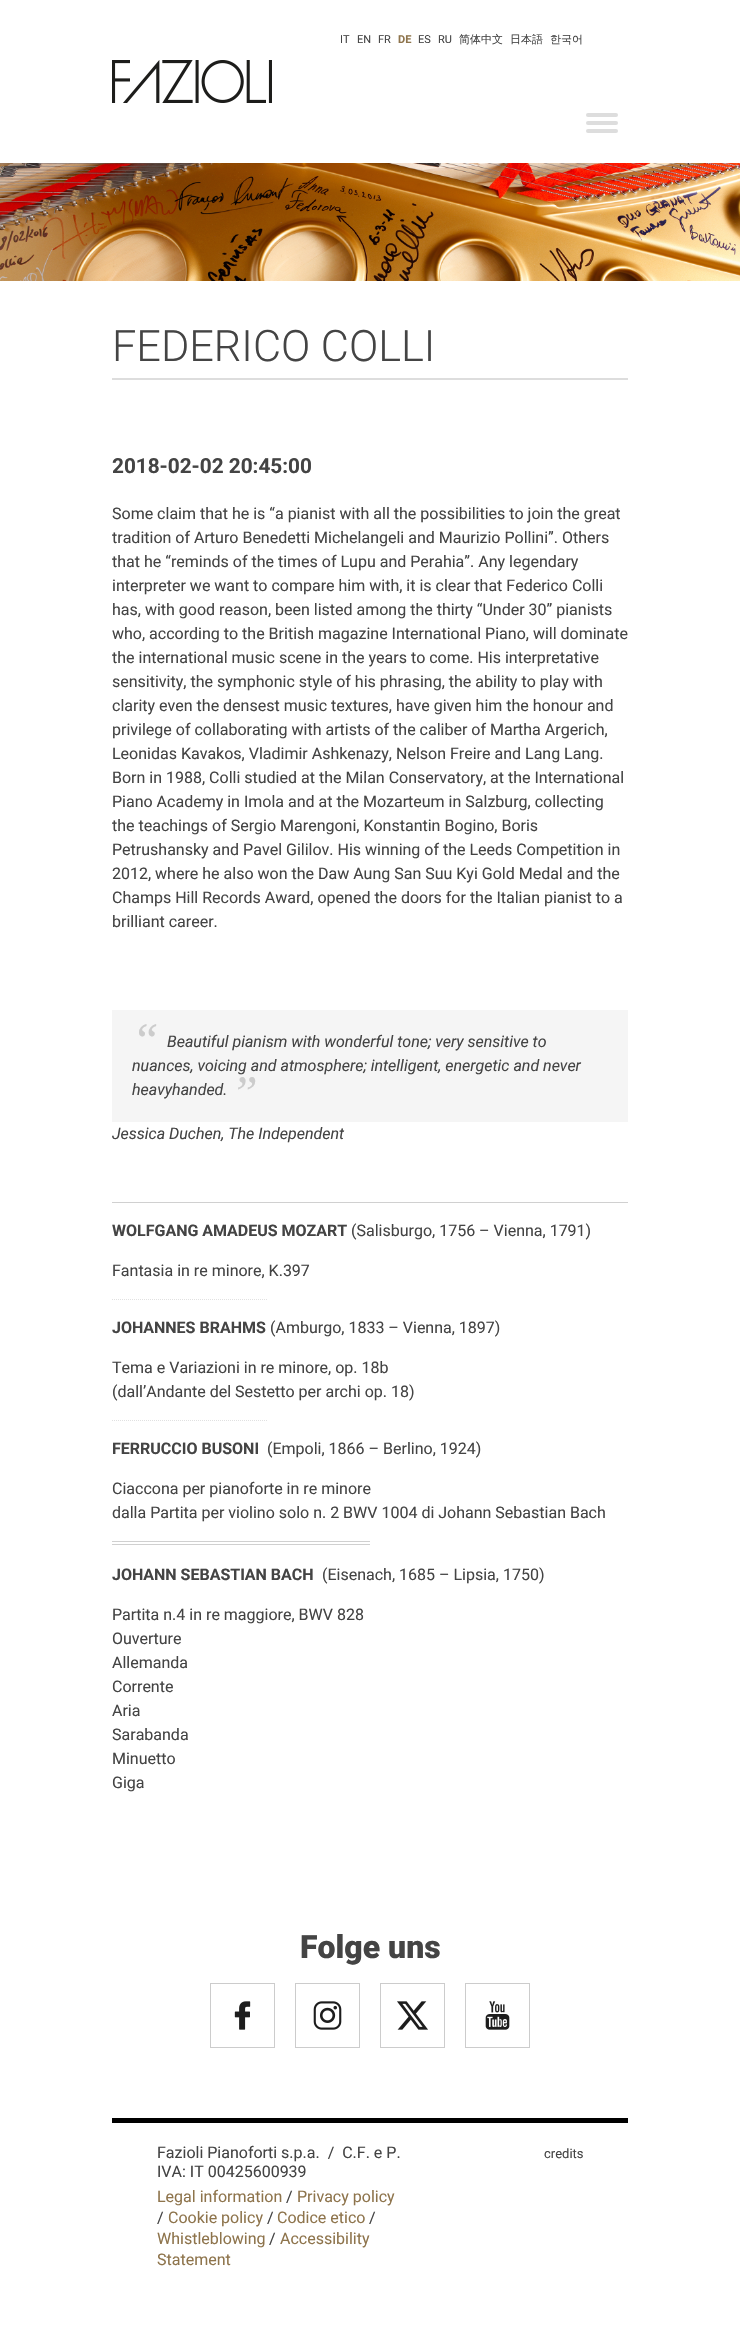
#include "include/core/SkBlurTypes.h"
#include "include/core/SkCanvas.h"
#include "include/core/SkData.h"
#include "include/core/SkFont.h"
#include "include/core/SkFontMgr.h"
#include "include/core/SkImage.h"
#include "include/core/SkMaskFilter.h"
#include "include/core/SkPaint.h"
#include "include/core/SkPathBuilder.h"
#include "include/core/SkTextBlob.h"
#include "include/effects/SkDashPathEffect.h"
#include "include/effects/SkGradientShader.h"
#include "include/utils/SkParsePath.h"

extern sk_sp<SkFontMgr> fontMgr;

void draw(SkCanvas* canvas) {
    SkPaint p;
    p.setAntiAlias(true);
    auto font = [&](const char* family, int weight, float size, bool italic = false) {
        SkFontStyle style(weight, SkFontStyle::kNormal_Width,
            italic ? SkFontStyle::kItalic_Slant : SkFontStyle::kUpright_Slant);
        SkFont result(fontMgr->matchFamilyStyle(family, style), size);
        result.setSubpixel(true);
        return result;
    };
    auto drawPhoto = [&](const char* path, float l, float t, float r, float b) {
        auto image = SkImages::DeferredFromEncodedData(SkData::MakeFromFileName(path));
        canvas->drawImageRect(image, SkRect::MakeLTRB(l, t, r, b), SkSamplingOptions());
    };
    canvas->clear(0xFFFFFFFF);
    auto font1 = font("Roboto", 400, 11);
    p.setColor(0xFF444444);
    {
        const struct { const char* s; float x, y; } items[] = {
            {"IT", 340, 43},
            {"EN", 357, 43},
            {"FR", 378, 43},
        };
        for (auto [s, x, y] : items) {
            canvas->drawString(s, x, y, font1, p);
        }
    }
    auto font2 = font("Roboto", 700, 11);
    p.setColor(0xFF8E744C);
    canvas->drawString("DE", 398, 43, font2, p);
    p.setColor(0xFF444444);
    canvas->drawString("ES", 418, 43, font1, p);
    canvas->drawString("RU", 438, 43, font1, p);
    auto font3 = font("WenQuanYi Zen Hei", 500, 11);
    {
        const struct { const char* s; float x, y; } items[] = {
            {"简体中文", 459, 43},
            {"日本語", 510, 43},
            {"한국어", 550, 43},
        };
        for (auto [s, x, y] : items) {
            canvas->drawString(s, x, y, font3, p);
        }
    }
    drawPhoto("media/1.png", 112, 60, 272, 103);
    p.setColor(0xFFDDDDDD);
    canvas->drawRoundRect(SkRect::MakeLTRB(586, 113, 618, 117), 2, 2, p);
    canvas->drawRoundRect(SkRect::MakeLTRB(586, 121, 618, 125), 2, 2, p);
    canvas->drawRoundRect(SkRect::MakeLTRB(586, 129, 618, 133), 2, 2, p);
    drawPhoto("media/2.png", 0, 163, 740, 281);
    canvas->drawRect(SkRect::MakeLTRB(112, 378, 628, 380), p);
    auto font4 = font("Roboto", 300, 43.25f);
    p.setColor(0xFF444444);
    canvas->drawString("FEDERICO COLLI", 112, 361, font4, p);
    auto font5 = font("Roboto", 700, 20.75f);
    canvas->drawString("2018-02-02 20:45:00", 112, 473, font5, p);
    auto font6 = font("Roboto", 400, 16);
    {
        const struct { const char* s; float x, y; } items[] = {
            {"Some claim that he is “a pianist with all the possibilities to join the great", 112, 519},
            {"tradition of Arturo Benedetti Michelangeli and Maurizio Pollini”. Others", 112, 543},
            {"that he “reminds of the times of Lupu and Perahia”. Any legendary", 112, 567},
            {"interpreter we want to compare him with, it is clear that Federico Colli", 112, 591},
            {"has, with good reason, been listed among the thirty “Under 30” pianists", 112, 615},
            {"who, according to the British magazine International Piano, will dominate", 112, 639},
            {"the international music scene in the years to come. His interpretative", 112, 663},
            {"sensitivity, the symphonic style of his phrasing, the ability to play with", 112, 687},
            {"clarity even the densest music textures, have given him the honour and", 112, 711},
            {"privilege of collaborating with artists of the caliber of Martha Argerich,", 112, 735},
            {"Leonidas Kavakos, Vladimir Ashkenazy, Nelson Freire and Lang Lang.", 112, 759},
            {"Born in 1988, Colli studied at the Milan Conservatory, at the International", 112, 783},
            {"Piano Academy in Imola and at the Mozarteum in Salzburg, collecting", 112, 807},
            {"the teachings of Sergio Marengoni, Konstantin Bogino, Boris", 112, 831},
            {"Petrushansky and Pavel Gililov. His winning of the Leeds Competition in", 112, 855},
            {"2012, where he also won the Daw Aung San Suu Kyi Gold Medal and the", 112, 879},
            {"Champs Hill Records Award, opened the doors for the Italian pianist to a", 112, 903},
            {"brilliant career.", 112, 927},
        };
        for (auto [s, x, y] : items) {
            canvas->drawString(s, x, y, font6, p);
        }
    }
    p.setColor(0xFFF5F5F5);
    canvas->drawRect(SkRect::MakeLTRB(112, 1010, 628, 1122), p);
    auto font7 = font("Liberation Serif", 400, 48, true);
    p.setColor(0xFFCCCCCC);
    canvas->drawString("“", 132, 1056, font7, p);
    auto font8 = font("Roboto", 400, 16, true);
    p.setColor(0xFF444444);
    {
        const struct { const char* s; float x, y; } items[] = {
            {"Beautiful pianism with wonderful tone; very sensitive to", 167, 1047},
            {"nuances, voicing and atmosphere; intelligent, energetic and never", 132, 1071},
            {"heavyhanded.", 132, 1095},
        };
        for (auto [s, x, y] : items) {
            canvas->drawString(s, x, y, font8, p);
        }
    }
    p.setColor(0xFFCCCCCC);
    canvas->drawString("”", 231, 1109, font7, p);
    p.setColor(0xFF444444);
    canvas->drawString("Jessica Duchen, The Independent", 112, 1139, font8, p);
    p.setColor(0xFFD0D0D0);
    canvas->drawRect(SkRect::MakeLTRB(112, 1202, 628, 1203), p);
    auto font9 = font("Roboto", 700, 16);
    p.setColor(0xFF444444);
    canvas->drawString("WOLFGANG AMADEUS MOZART", 112, 1236, font9, p);
    canvas->drawString("(Salisburgo, 1756 – Vienna, 1791)", 351, 1236, font6, p);
    canvas->drawString("Fantasia in re minore, K.397", 112, 1276, font6, p);
    p.setStyle(SkPaint::kStroke_Style);
    p.setStrokeWidth(1);
    p.setColor(0xFFE1E1E1);
    p.setPathEffect(SkDashPathEffect::Make({{1, 1}}, 0));
    canvas->drawPath(SkPathBuilder().moveTo(112, 1299.5f).lineTo(267, 1299.5f).detach(), p);
    p.setPathEffect(nullptr);
    p.setStyle(SkPaint::kFill_Style);
    p.setColor(0xFF444444);
    canvas->drawString("JOHANNES BRAHMS", 112, 1333, font9, p);
    {
        const struct { const char* s; float x, y; } items[] = {
            {"(Amburgo, 1833 – Vienna, 1897)", 270, 1333},
            {"Tema e Variazioni in re minore, op. 18b", 112, 1373},
            {"(dall’Andante del Sestetto per archi op. 18)", 112, 1397},
        };
        for (auto [s, x, y] : items) {
            canvas->drawString(s, x, y, font6, p);
        }
    }
    p.setStyle(SkPaint::kStroke_Style);
    p.setColor(0xFFE1E1E1);
    p.setPathEffect(SkDashPathEffect::Make({{1, 1}}, 0));
    canvas->drawPath(SkPathBuilder().moveTo(112, 1420.5f).lineTo(267, 1420.5f).detach(), p);
    p.setPathEffect(nullptr);
    p.setStyle(SkPaint::kFill_Style);
    p.setColor(0xFF444444);
    canvas->drawString("FERRUCCIO BUSONI", 112, 1454, font9, p);
    {
        const struct { const char* s; float x, y; } items[] = {
            {"(Empoli, 1866 – Berlino, 1924)", 267, 1454},
            {"Ciaccona per pianoforte in re minore", 112, 1494},
            {"dalla Partita per violino solo n. 2 BWV 1004 di Johann Sebastian Bach", 112, 1518},
        };
        for (auto [s, x, y] : items) {
            canvas->drawString(s, x, y, font6, p);
        }
    }
    p.setColor(0xFFD0D0D0);
    canvas->drawRect(SkRect::MakeLTRB(112, 1541, 370, 1542), p);
    canvas->drawRect(SkRect::MakeLTRB(112, 1544, 370, 1545), p);
    p.setColor(0xFF444444);
    canvas->drawString("JOHANN SEBASTIAN BACH", 112, 1580, font9, p);
    {
        const struct { const char* s; float x, y; } items[] = {
            {"(Eisenach, 1685 – Lipsia, 1750)", 322, 1580},
            {"Partita n.4 in re maggiore, BWV 828", 112, 1620},
            {"Ouverture", 112, 1644},
            {"Allemanda", 112, 1668},
            {"Corrente", 112, 1692},
            {"Aria", 112, 1716},
            {"Sarabanda", 112, 1740},
            {"Minuetto", 112, 1764},
            {"Giga", 112, 1788},
        };
        for (auto [s, x, y] : items) {
            canvas->drawString(s, x, y, font6, p);
        }
    }
    auto font10 = font("Roboto", 900, 32);
    canvas->drawString("Folge uns", 300, 1958, font10, p);
    drawPhoto("media/3.png", 234, 2001, 251, 2030);
    p.setStyle(SkPaint::kStroke_Style);
    p.setColor(0xFFCCCCCC);
    canvas->drawRect(SkRect::MakeLTRB(210.5f, 1983.5f, 274.5f, 2047.5f), p);
    drawPhoto("media/4.png", 313, 2001, 342, 2030);
    canvas->drawRect(SkRect::MakeLTRB(295.5f, 1983.5f, 359.5f, 2047.5f), p);
    drawPhoto("media/5.png", 397, 2001, 428, 2030);
    canvas->drawRect(SkRect::MakeLTRB(380.5f, 1983.5f, 444.5f, 2047.5f), p);
    drawPhoto("media/6.png", 485, 2001, 510, 2030);
    canvas->drawRect(SkRect::MakeLTRB(465.5f, 1983.5f, 529.5f, 2047.5f), p);
    p.setStyle(SkPaint::kFill_Style);
    p.setColor(0xFF000000);
    canvas->drawRect(SkRect::MakeLTRB(112, 2118, 628, 2123), p);
    p.setColor(0xFF444444);
    canvas->drawString("Fazioli Pianoforti s.p.a.  /  C.F. e P.", 157, 2158, font6, p);
    canvas->drawString("IVA: IT 00425600939", 157, 2177, font6, p);
    p.setColor(0xFF8E744C);
    canvas->drawString("Legal information", 157, 2202, font6, p);
    p.setColor(0xFF444444);
    canvas->drawString("/", 286, 2202, font6, p);
    p.setColor(0xFF8E744C);
    canvas->drawString("Privacy policy", 297, 2202, font6, p);
    p.setColor(0xFF444444);
    canvas->drawString("/", 157, 2223, font6, p);
    p.setColor(0xFF8E744C);
    canvas->drawString("Cookie policy", 168, 2223, font6, p);
    p.setColor(0xFF444444);
    canvas->drawString("/", 267, 2223, font6, p);
    p.setColor(0xFF8E744C);
    canvas->drawString("Codice etico", 277, 2223, font6, p);
    p.setColor(0xFF444444);
    canvas->drawString("/", 369, 2223, font6, p);
    p.setColor(0xFF8E744C);
    canvas->drawString("Whistleblowing", 157, 2244, font6, p);
    p.setColor(0xFF444444);
    canvas->drawString("/", 269, 2244, font6, p);
    p.setColor(0xFF8E744C);
    canvas->drawString("Accessibility", 280, 2244, font6, p);
    canvas->drawString("Statement", 157, 2265, font6, p);
    auto font11 = font("Roboto", 400, 13);
    p.setColor(0xFF444444);
    canvas->drawString("credits", 544, 2158, font11, p);
}
